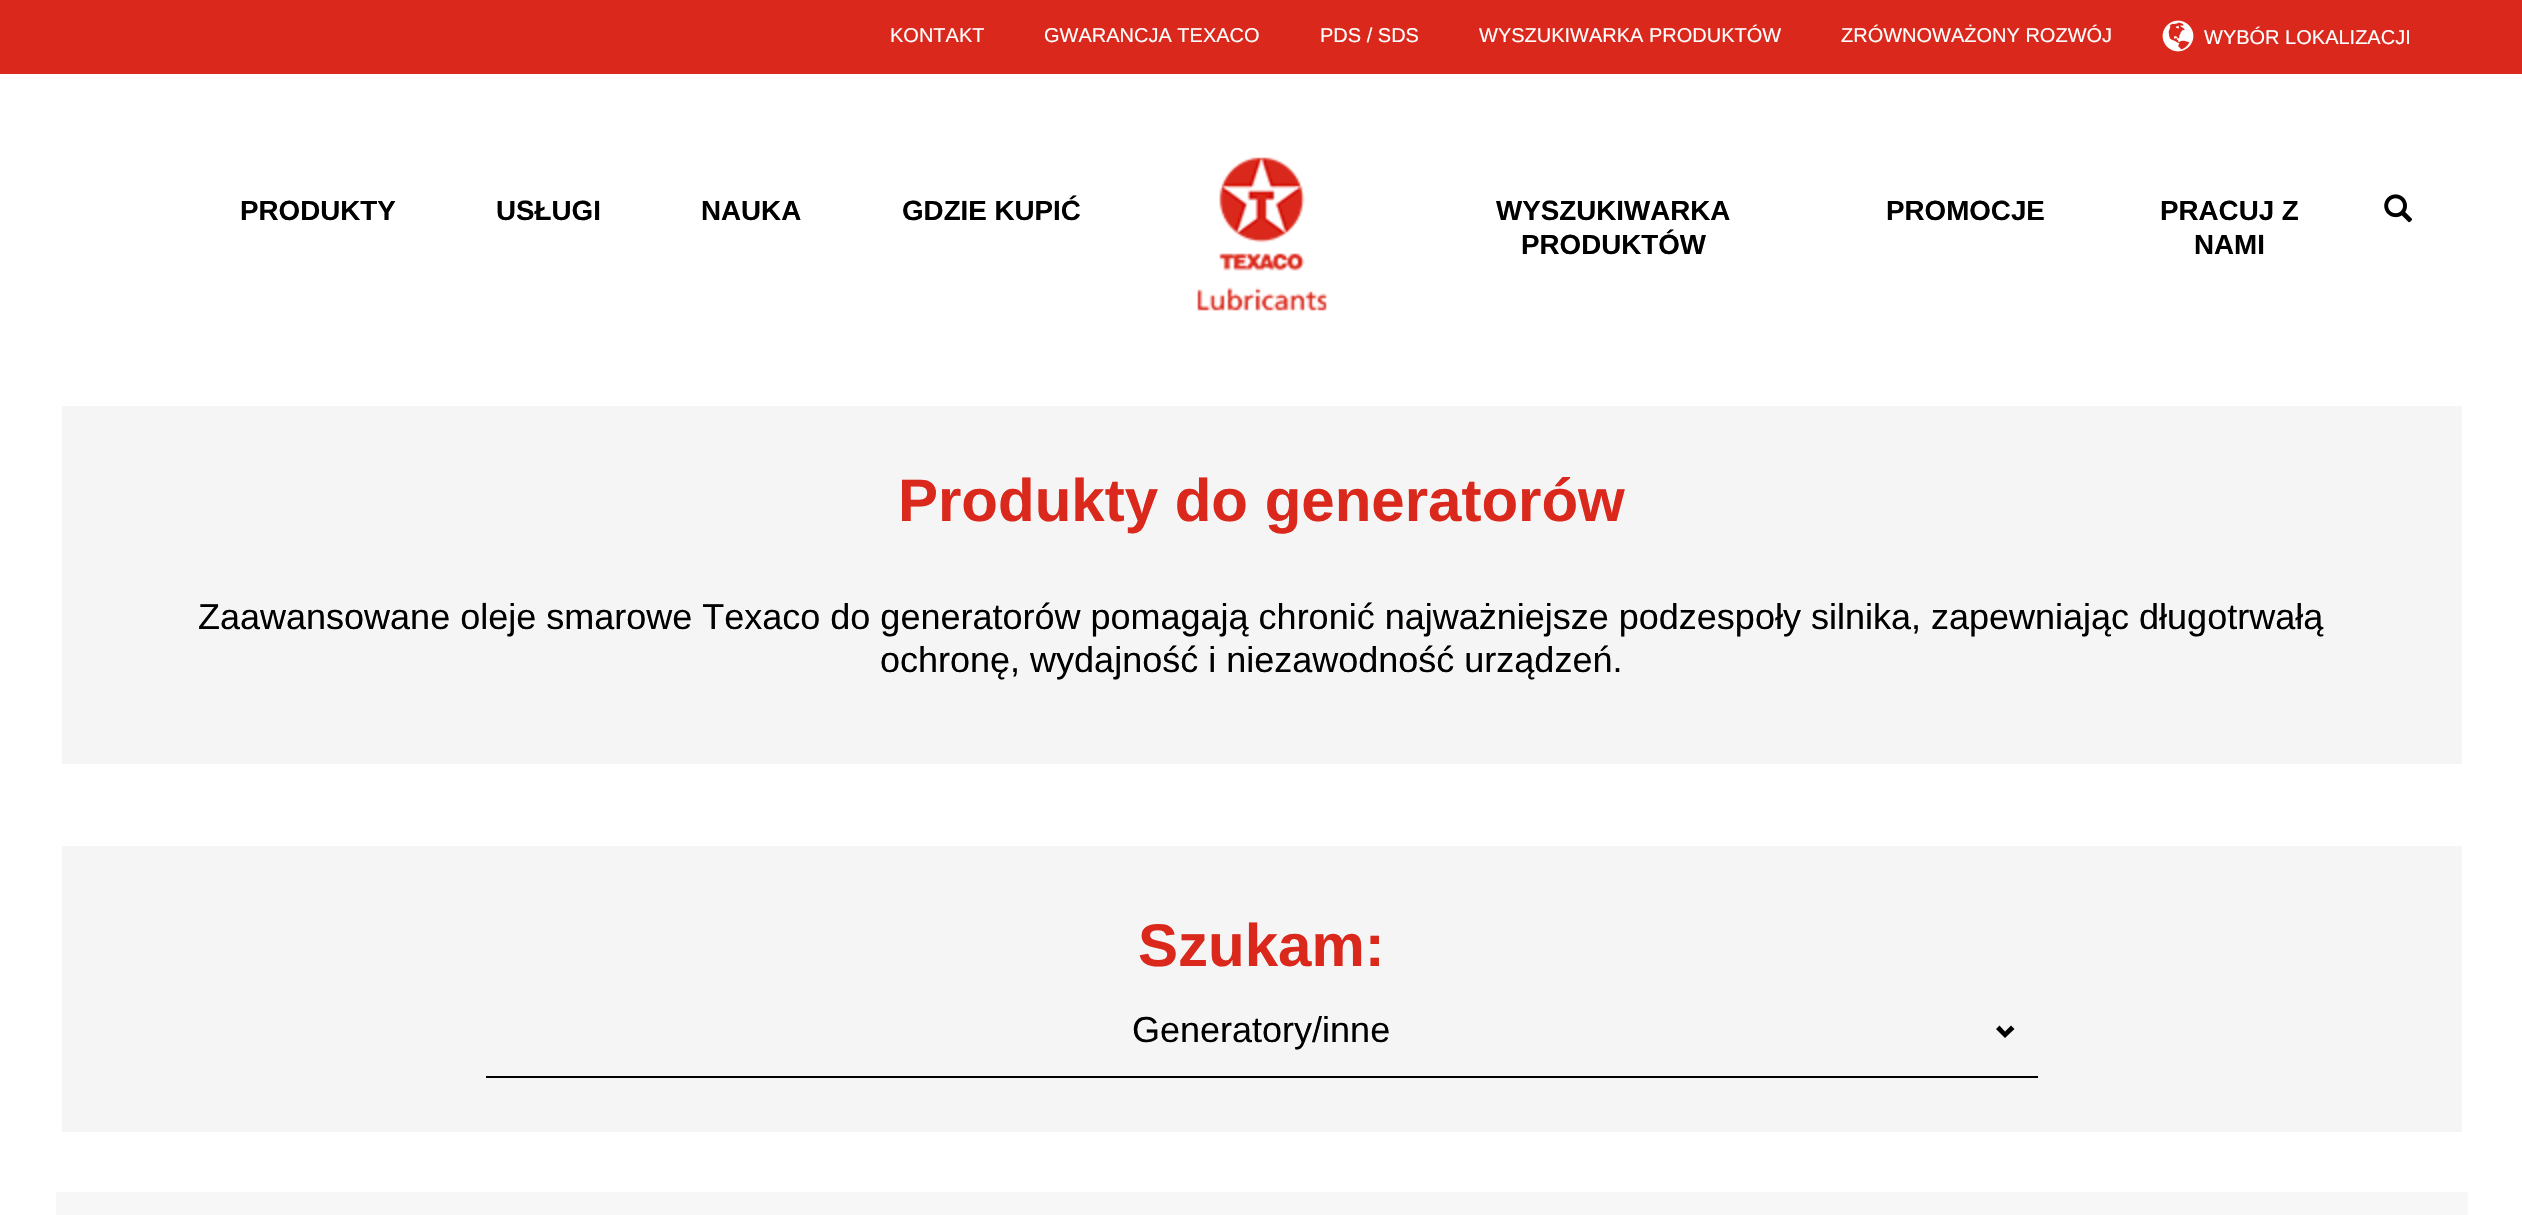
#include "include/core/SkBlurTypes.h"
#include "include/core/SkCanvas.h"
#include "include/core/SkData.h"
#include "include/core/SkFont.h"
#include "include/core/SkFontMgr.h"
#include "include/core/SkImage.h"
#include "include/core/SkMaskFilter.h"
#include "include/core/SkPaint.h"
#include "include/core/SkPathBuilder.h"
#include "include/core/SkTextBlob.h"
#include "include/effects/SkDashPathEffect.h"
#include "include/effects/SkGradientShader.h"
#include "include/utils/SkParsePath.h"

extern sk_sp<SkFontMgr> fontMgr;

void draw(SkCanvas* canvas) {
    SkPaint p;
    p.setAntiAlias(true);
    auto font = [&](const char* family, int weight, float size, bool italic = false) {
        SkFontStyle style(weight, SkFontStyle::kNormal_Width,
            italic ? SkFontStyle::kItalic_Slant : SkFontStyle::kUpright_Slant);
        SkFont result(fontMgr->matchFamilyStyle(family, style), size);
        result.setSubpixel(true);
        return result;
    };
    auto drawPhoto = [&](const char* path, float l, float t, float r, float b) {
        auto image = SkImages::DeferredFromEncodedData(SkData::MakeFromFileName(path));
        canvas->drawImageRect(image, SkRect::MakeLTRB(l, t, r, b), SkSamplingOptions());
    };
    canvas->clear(0xFFFFFFFF);
    p.setColor(0xFFDA291C);
    canvas->drawRect(SkRect::MakeLTRB(0, 0, 2522, 74), p);
    auto font1 = font("Liberation Sans", 400, 20);
    p.setColor(0xFFFFFFFF);
    {
        const struct { const char* s; float x, y; } items[] = {
            {"KONTAKT", 890, 42},
            {"GWARANCJA TEXACO", 1044, 42},
            {"PDS / SDS", 1320, 42},
            {"WYSZUKIWARKA PRODUKTÓW", 1479, 42},
            {"ZRÓWNOWAŻONY ROZWÓJ", 1841, 42},
        };
        for (auto [s, x, y] : items) {
            canvas->drawString(s, x, y, font1, p);
        }
    }
    drawPhoto("media/1.png", 2162, 20, 2194, 52);
    canvas->drawString("WYBÓR LOKALIZACJI", 2204, 44, font1, p);
    auto font2 = font("Liberation Sans", 700, 27.75f);
    p.setColor(0xFF000000);
    {
        const struct { const char* s; float x, y; } items[] = {
            {"PRODUKTY", 240, 220},
            {"USŁUGI", 496, 220},
            {"NAUKA", 701, 220},
            {"GDZIE KUPIĆ", 902, 220},
        };
        for (auto [s, x, y] : items) {
            canvas->drawString(s, x, y, font2, p);
        }
    }
    drawPhoto("media/2.png", 1197, 157, 1327, 311);
    {
        const struct { const char* s; float x, y; } items[] = {
            {"WYSZUKIWARKA", 1496, 220},
            {"PRODUKTÓW", 1521, 254},
            {"PROMOCJE", 1886, 220},
            {"PRACUJ Z", 2160, 220},
            {"NAMI", 2194, 254},
        };
        for (auto [s, x, y] : items) {
            canvas->drawString(s, x, y, font2, p);
        }
    }
    drawPhoto("media/3.png", 2384, 194, 2413, 223);
    p.setColor(0xFFF5F5F5);
    canvas->drawRect(SkRect::MakeLTRB(62, 406, 2462, 764), p);
    auto font3 = font("Liberation Sans", 700, 60);
    p.setColor(0xFFDA291C);
    canvas->drawString("Produkty do generatorów", 898, 521, font3, p);
    auto font4 = font("Liberation Sans", 400, 36);
    p.setColor(0xFF000000);
    canvas->drawString("Zaawansowane oleje smarowe Texaco do generatorów pomagają chronić najważniejsze podzespoły silnika, zapewniając długotrwałą", 198, 629, font4, p);
    canvas->drawString("ochronę, wydajność i niezawodność urządzeń.", 880, 672, font4, p);
    p.setColor(0xFFF5F5F5);
    canvas->drawRect(SkRect::MakeLTRB(62, 846, 2462, 1132), p);
    p.setColor(0xFFDA291C);
    canvas->drawString("Szukam:", 1138, 966, font3, p);
    p.setColor(0xFF000000);
    canvas->drawRect(SkRect::MakeLTRB(486, 1076, 2038, 1078), p);
    canvas->drawString("Generatory/inne", 1132, 1042, font4, p);
    canvas->drawPath(SkPathBuilder().moveTo(2014.5f, 1029).lineTo(2005, 1038).lineTo(1996, 1029).lineTo(1999.5f, 1025.5f).lineTo(2005, 1031.5f).lineTo(2011, 1025.5f).close().detach(), p);
    p.setColor(0xFFF7F7F7);
    canvas->drawRect(SkRect::MakeLTRB(56, 1192, 2468, 1215), p);
}
